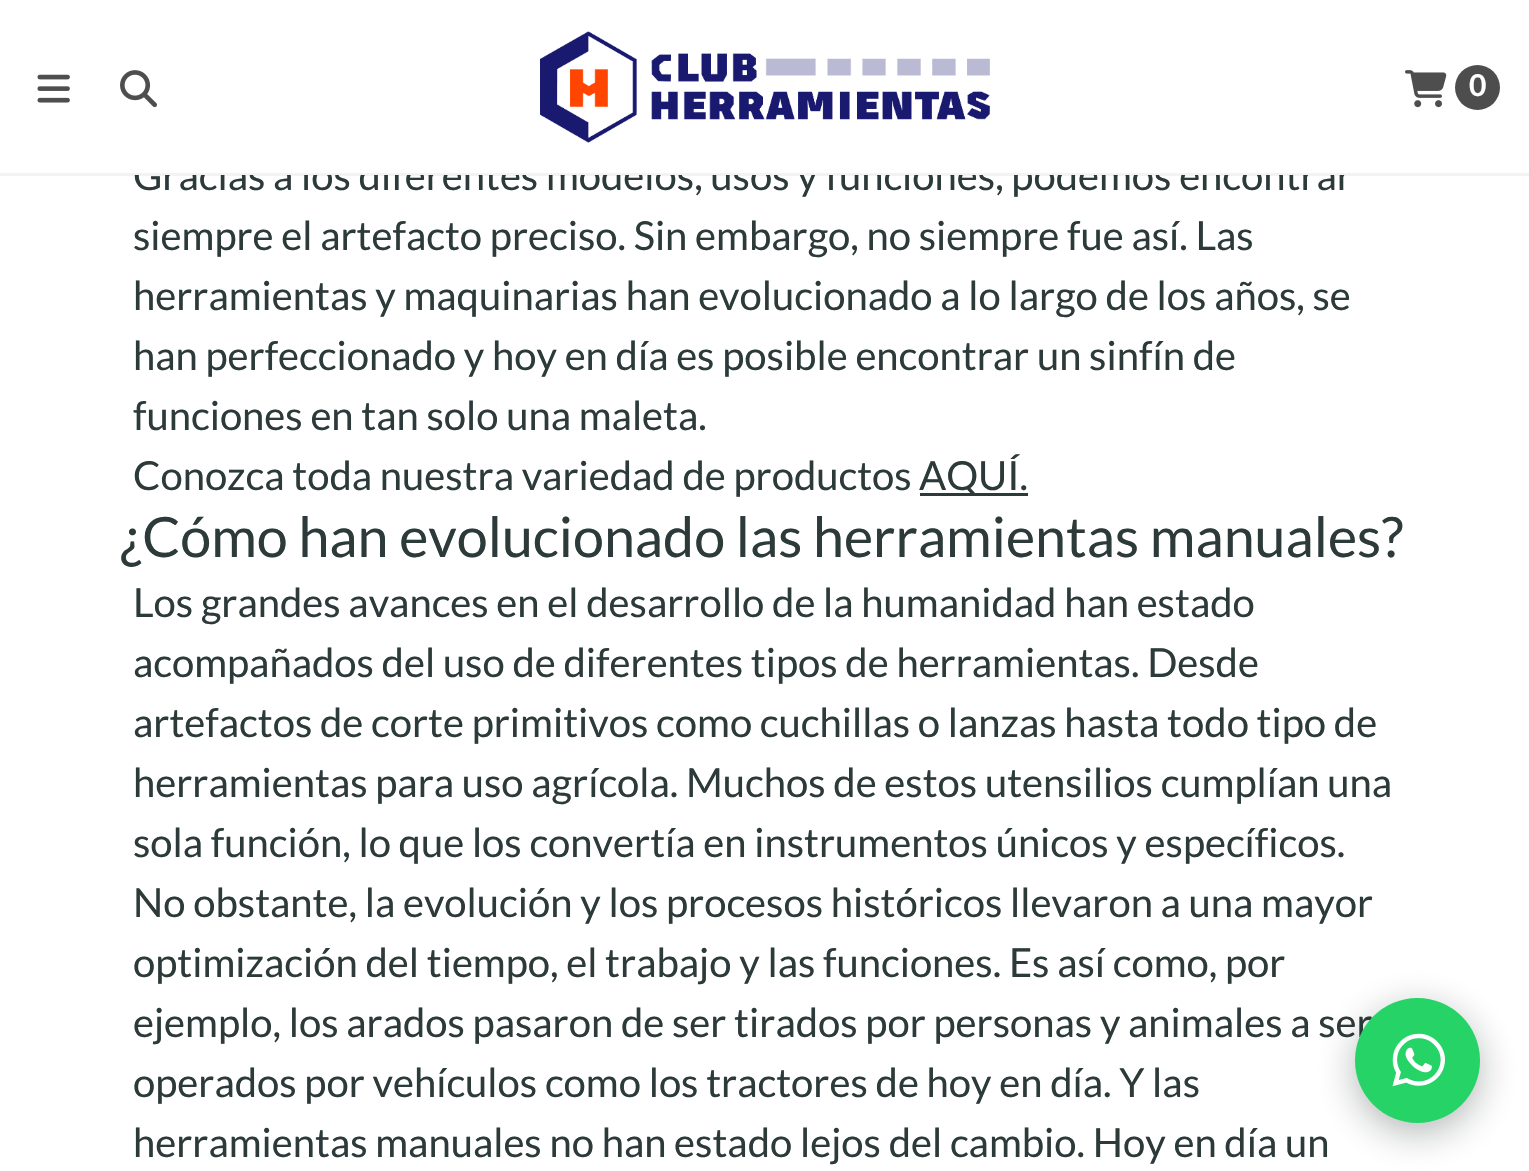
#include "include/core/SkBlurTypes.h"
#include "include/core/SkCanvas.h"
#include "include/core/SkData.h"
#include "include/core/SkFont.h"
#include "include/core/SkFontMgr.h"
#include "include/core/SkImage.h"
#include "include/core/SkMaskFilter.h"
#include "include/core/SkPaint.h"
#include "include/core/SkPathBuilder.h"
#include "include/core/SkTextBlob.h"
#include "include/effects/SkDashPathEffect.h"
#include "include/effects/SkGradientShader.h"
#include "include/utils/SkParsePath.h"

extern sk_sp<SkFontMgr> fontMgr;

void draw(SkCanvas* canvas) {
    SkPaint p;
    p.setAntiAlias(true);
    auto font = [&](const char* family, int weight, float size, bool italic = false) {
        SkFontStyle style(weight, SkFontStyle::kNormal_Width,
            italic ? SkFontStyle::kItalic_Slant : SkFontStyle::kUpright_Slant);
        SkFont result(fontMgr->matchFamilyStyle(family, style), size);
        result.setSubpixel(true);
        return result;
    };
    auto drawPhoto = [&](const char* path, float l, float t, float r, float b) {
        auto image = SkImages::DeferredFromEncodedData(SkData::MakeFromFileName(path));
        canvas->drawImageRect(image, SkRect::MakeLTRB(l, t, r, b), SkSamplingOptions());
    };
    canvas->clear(0xFFFFFFFF);
    auto font1 = font("Lato", 400, 40);
    p.setColor(0xFF2D3A3A);
    canvas->drawString("Gracias a los diferentes modelos, usos y funciones, podemos encontrar", 133, 190, font1, p);
    p.setColor(0xFFFFFFFF);
    canvas->drawRect(SkRect::MakeLTRB(134, 160, 1352, 175), p);
    p.setColor(0x0D040F0F);
    canvas->drawRect(SkRect::MakeLTRB(0, 173, 1529, 176), p);
    drawPhoto("media/1.png", 37, 74, 70, 103);
    drawPhoto("media/2.png", 120, 70, 157, 108);
    drawPhoto("media/3.png", 540, 31, 990, 143);
    drawPhoto("media/4.png", 1405, 70, 1447, 108);
    p.setColor(0xFF4D4D4D);
    canvas->drawCircle(1477.5f, 87.5f, 22.5f, p);
    auto font2 = font("Lato", 700, 30);
    p.setColor(0xFFFFFFFF);
    canvas->drawString("0", 1469, 96, font2, p);
    p.setColor(0xFF2D3A3A);
    {
        const struct { const char* s; float x, y; } items[] = {
            {"siempre el artefacto preciso. Sin embargo, no siempre fue así. Las", 133, 250},
            {"herramientas y maquinarias han evolucionado a lo largo de los años, se", 133, 310},
            {"han perfeccionado y hoy en día es posible encontrar un sinfín de", 133, 370},
            {"funciones en tan solo una maleta.", 133, 430},
            {"Conozca toda nuestra variedad de productos", 133, 490},
        };
        for (auto [s, x, y] : items) {
            canvas->drawString(s, x, y, font1, p);
        }
    }
    canvas->drawRect(SkRect::MakeLTRB(920, 493, 1028, 496), p);
    canvas->drawString("AQUÍ.", 919, 490, font1, p);
    auto font3 = font("Lato", 400, 55.6f);
    canvas->drawString("¿Cómo han evolucionado las herramientas manuales?", 120, 557, font3, p);
    {
        const struct { const char* s; float x, y; } items[] = {
            {"Los grandes avances en el desarrollo de la humanidad han estado", 133, 617},
            {"acompañados del uso de diferentes tipos de herramientas. Desde", 133, 677},
            {"artefactos de corte primitivos como cuchillas o lanzas hasta todo tipo de", 133, 737},
            {"herramientas para uso agrícola. Muchos de estos utensilios cumplían una", 133, 797},
            {"sola función, lo que los convertía en instrumentos únicos y específicos.", 133, 857},
            {"No obstante, la evolución y los procesos históricos llevaron a una mayor", 133, 917},
            {"optimización del tiempo, el trabajo y las funciones. Es así como, por", 133, 977},
            {"ejemplo, los arados pasaron de ser tirados por personas y animales a ser", 133, 1037},
            {"operados por vehículos como los tractores de hoy en día. Y las", 133, 1097},
            {"herramientas manuales no han estado lejos del cambio. Hoy en día un", 133, 1157},
        };
        for (auto [s, x, y] : items) {
            canvas->drawString(s, x, y, font1, p);
        }
    }
    p.setColor(0x4D040F0F);
    p.setMaskFilter(SkMaskFilter::MakeBlur(kNormal_SkBlurStyle, 19));
    canvas->drawRoundRect(SkRect::MakeLTRB(1355, 1008, 1480, 1133), 62.5f, 62.5f, p);
    p.setMaskFilter(nullptr);
    p.setColor(0xFF25D366);
    canvas->drawCircle(1417.5f, 1060.5f, 62.5f, p);
    drawPhoto("media/5.png", 1392, 1033, 1445, 1087);
}
